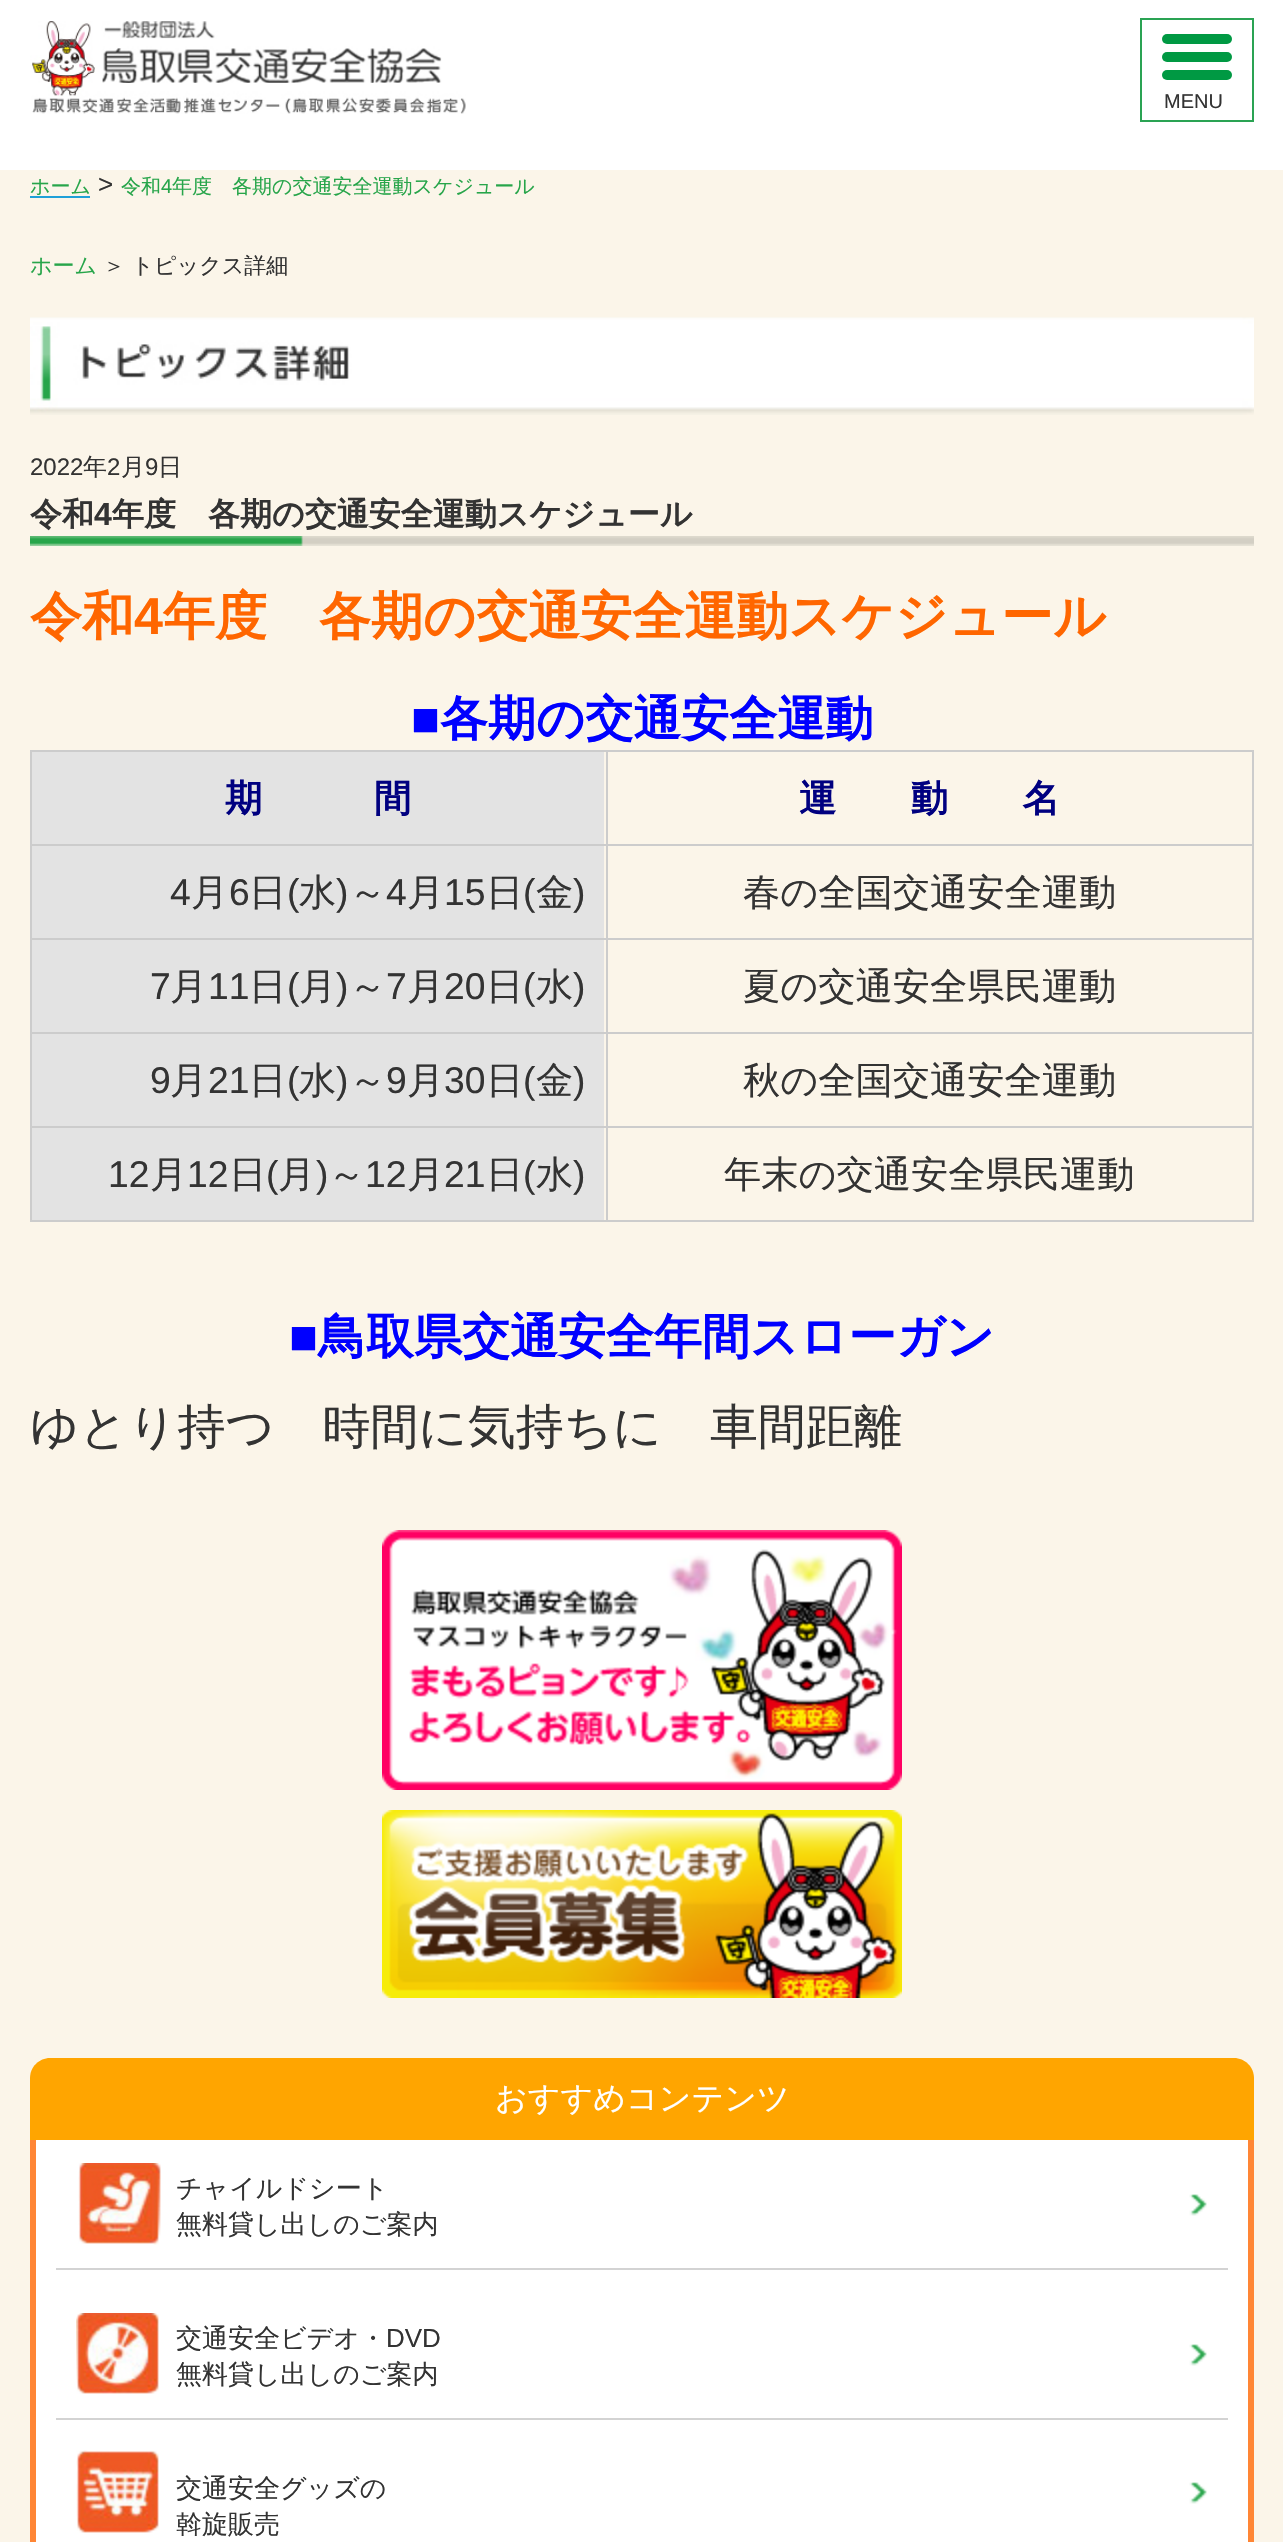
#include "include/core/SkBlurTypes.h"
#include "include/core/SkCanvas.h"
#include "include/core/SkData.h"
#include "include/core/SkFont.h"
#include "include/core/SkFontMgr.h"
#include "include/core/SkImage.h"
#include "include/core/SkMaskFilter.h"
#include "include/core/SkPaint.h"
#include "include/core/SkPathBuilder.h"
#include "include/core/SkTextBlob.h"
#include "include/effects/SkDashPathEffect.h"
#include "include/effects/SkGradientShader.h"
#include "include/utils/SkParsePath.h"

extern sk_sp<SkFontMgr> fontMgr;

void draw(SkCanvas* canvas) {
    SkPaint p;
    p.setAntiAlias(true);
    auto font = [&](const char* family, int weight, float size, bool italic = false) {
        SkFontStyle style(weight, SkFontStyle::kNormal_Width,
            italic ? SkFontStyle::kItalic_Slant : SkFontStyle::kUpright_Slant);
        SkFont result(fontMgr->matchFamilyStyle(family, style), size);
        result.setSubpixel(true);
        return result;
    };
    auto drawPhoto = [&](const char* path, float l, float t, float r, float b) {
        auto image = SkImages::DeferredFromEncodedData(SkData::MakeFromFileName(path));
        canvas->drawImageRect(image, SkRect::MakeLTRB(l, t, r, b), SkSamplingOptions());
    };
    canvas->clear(0xFFFFFFFF);
    drawPhoto("media/1.png", 30, 21, 466, 114);
    p.setStyle(SkPaint::kStroke_Style);
    p.setStrokeWidth(2);
    p.setColor(0xFF2AA353);
    canvas->drawRect(SkRect::MakeLTRB(1141, 19, 1253, 121), p);
    p.setStyle(SkPaint::kFill_Style);
    p.setColor(0xFF009943);
    canvas->drawRoundRect(SkRect::MakeLTRB(1162, 34, 1232, 44), 5, 5, p);
    canvas->drawRoundRect(SkRect::MakeLTRB(1162, 52, 1232, 62), 5, 5, p);
    canvas->drawRoundRect(SkRect::MakeLTRB(1162, 70, 1232, 80), 5, 5, p);
    auto font1 = font("Liberation Sans", 400, 20);
    p.setColor(0xFF333333);
    canvas->drawString("MENU", 1164, 108, font1, p);
    p.setColor(0xFFFBF5E9);
    canvas->drawRect(SkRect::MakeLTRB(0, 170, 1283, 2542), p);
    auto font2 = font("WenQuanYi Zen Hei", 500, 20);
    p.setColor(0xFF27A54A);
    canvas->drawString("ホーム", 30, 193, font2, p);
    p.setColor(0xFF1FA0D8);
    canvas->drawRect(SkRect::MakeLTRB(30, 196, 90, 198), p);
    auto font3 = font("Liberation Sans", 400, 26);
    p.setColor(0xFF333333);
    canvas->drawString(">", 98, 193, font3, p);
    p.setColor(0xFF27A54A);
    canvas->drawString("令和", 121, 193, font2, p);
    canvas->drawString("4", 161, 193, font1, p);
    canvas->drawString("年度　各期の交通安全運動スケジュール", 172, 193, font2, p);
    auto font4 = font("WenQuanYi Zen Hei", 500, 22);
    canvas->drawString("ホーム", 30, 273, font4, p);
    p.setColor(0xFF333333);
    canvas->drawString("＞ トピックス詳細", 103, 273, font4, p);
    drawPhoto("media/2.png", 30, 317, 1254, 415);
    auto font5 = font("Liberation Sans", 400, 24);
    canvas->drawString("2022", 30, 475, font5, p);
    auto font6 = font("WenQuanYi Zen Hei", 500, 24);
    canvas->drawString("年", 83, 475, font6, p);
    canvas->drawString("2", 107, 475, font5, p);
    canvas->drawString("月", 121, 475, font6, p);
    canvas->drawString("9", 145, 475, font5, p);
    canvas->drawString("日", 158, 475, font6, p);
    drawPhoto("media/3.png", 30, 536, 1254, 546);
    auto font7 = font("WenQuanYi Zen Hei", 700, 32);
    canvas->drawString("令和", 30, 525, font7, p);
    auto font8 = font("Liberation Sans", 700, 32);
    canvas->drawString("4", 94, 525, font8, p);
    canvas->drawString("年度　各期の交通安全運動スケジュール", 112, 525, font7, p);
    auto font9 = font("WenQuanYi Zen Hei", 700, 52);
    p.setColor(0xFFFF6600);
    canvas->drawString("令和", 30, 634, font9, p);
    auto font10 = font("Liberation Sans", 700, 52);
    canvas->drawString("4", 134, 634, font10, p);
    canvas->drawString("年度　各期の交通安全運動スケジュール", 163, 634, font9, p);
    auto font11 = font("Liberation Sans", 700, 48);
    p.setColor(0xFF0000FF);
    canvas->drawString("■", 411, 735, font11, p);
    auto font12 = font("WenQuanYi Zen Hei", 700, 48);
    canvas->drawString("各期の交通安全運動", 440, 735, font12, p);
    {
        const struct { float l, t, r, b; SkColor color; } items[] = {
            {30, 750, 1254, 752, 0xFFCCCCCC},
            {1252, 750, 1254, 1222, 0xFFCCCCCC},
            {30, 1220, 1254, 1222, 0xFFCCCCCC},
            {30, 750, 32, 1222, 0xFFCCCCCC},
            {32, 752, 604, 844, 0xFFE3E3E3},
            {606, 1126, 608, 1222, 0xFFCCCCCC},
            {606, 1126, 1254, 1128, 0xFFCCCCCC},
            {606, 1032, 608, 1128, 0xFFCCCCCC},
            {606, 1032, 1254, 1034, 0xFFCCCCCC},
            {606, 938, 608, 1034, 0xFFCCCCCC},
            {606, 938, 1254, 940, 0xFFCCCCCC},
            {606, 844, 608, 940, 0xFFCCCCCC},
            {606, 844, 1254, 846, 0xFFCCCCCC},
            {606, 750, 608, 846, 0xFFCCCCCC},
            {30, 844, 608, 846, 0xFFCCCCCC},
        };
        for (auto [l, t, r, b, color] : items) {
            p.setColor(color);
            canvas->drawRect(SkRect::MakeLTRB(l, t, r, b), p);
        }
    }
    auto font13 = font("WenQuanYi Zen Hei", 700, 37.25f);
    p.setColor(0xFF000080);
    canvas->drawString("期　　　間", 225, 811, font13, p);
    canvas->drawString("運　　動　　名", 799, 811, font13, p);
    p.setColor(0xFFE3E3E3);
    canvas->drawRect(SkRect::MakeLTRB(32, 846, 604, 938), p);
    p.setColor(0xFFCCCCCC);
    canvas->drawRect(SkRect::MakeLTRB(30, 938, 608, 940), p);
    auto font14 = font("Liberation Sans", 400, 37.25f);
    p.setColor(0xFF333333);
    canvas->drawString("4", 170, 905, font14, p);
    auto font15 = font("WenQuanYi Zen Hei", 500, 37.25f);
    canvas->drawString("月", 191, 905, font15, p);
    canvas->drawString("6", 229, 905, font14, p);
    canvas->drawString("日", 249, 905, font15, p);
    canvas->drawString("(", 287, 905, font14, p);
    canvas->drawString("水", 299, 905, font15, p);
    canvas->drawString(")", 336, 905, font14, p);
    canvas->drawString("～", 349, 905, font15, p);
    canvas->drawString("4", 386, 905, font14, p);
    canvas->drawString("月", 407, 905, font15, p);
    canvas->drawString("15", 444, 905, font14, p);
    canvas->drawString("日", 486, 905, font15, p);
    canvas->drawString("(", 523, 905, font14, p);
    canvas->drawString("金", 536, 905, font15, p);
    canvas->drawString(")", 573, 905, font14, p);
    canvas->drawString("春の全国交通安全運動", 743, 905, font15, p);
    p.setColor(0xFFE3E3E3);
    canvas->drawRect(SkRect::MakeLTRB(32, 940, 604, 1032), p);
    p.setColor(0xFFCCCCCC);
    canvas->drawRect(SkRect::MakeLTRB(30, 1032, 608, 1034), p);
    p.setColor(0xFF333333);
    canvas->drawString("7", 150, 999, font14, p);
    canvas->drawString("月", 170, 999, font15, p);
    canvas->drawString("11", 208, 999, font14, p);
    canvas->drawString("日", 249, 999, font15, p);
    canvas->drawString("(", 287, 999, font14, p);
    canvas->drawString("月", 299, 999, font15, p);
    canvas->drawString(")", 336, 999, font14, p);
    canvas->drawString("～", 349, 999, font15, p);
    canvas->drawString("7", 386, 999, font14, p);
    canvas->drawString("月", 407, 999, font15, p);
    canvas->drawString("20", 444, 999, font14, p);
    canvas->drawString("日", 486, 999, font15, p);
    canvas->drawString("(", 523, 999, font14, p);
    canvas->drawString("水", 536, 999, font15, p);
    canvas->drawString(")", 573, 999, font14, p);
    canvas->drawString("夏の交通安全県民運動", 743, 999, font15, p);
    p.setColor(0xFFE3E3E3);
    canvas->drawRect(SkRect::MakeLTRB(32, 1034, 604, 1126), p);
    p.setColor(0xFFCCCCCC);
    canvas->drawRect(SkRect::MakeLTRB(30, 1126, 608, 1128), p);
    p.setColor(0xFF333333);
    canvas->drawString("9", 150, 1093, font14, p);
    canvas->drawString("月", 170, 1093, font15, p);
    canvas->drawString("21", 208, 1093, font14, p);
    canvas->drawString("日", 249, 1093, font15, p);
    canvas->drawString("(", 287, 1093, font14, p);
    canvas->drawString("水", 299, 1093, font15, p);
    canvas->drawString(")", 336, 1093, font14, p);
    canvas->drawString("～", 349, 1093, font15, p);
    canvas->drawString("9", 386, 1093, font14, p);
    canvas->drawString("月", 407, 1093, font15, p);
    canvas->drawString("30", 444, 1093, font14, p);
    canvas->drawString("日", 486, 1093, font15, p);
    canvas->drawString("(", 523, 1093, font14, p);
    canvas->drawString("金", 536, 1093, font15, p);
    canvas->drawString(")", 573, 1093, font14, p);
    canvas->drawString("秋の全国交通安全運動", 743, 1093, font15, p);
    p.setColor(0xFFE3E3E3);
    canvas->drawRect(SkRect::MakeLTRB(32, 1128, 604, 1220), p);
    p.setColor(0xFF333333);
    canvas->drawString("12", 108, 1187, font14, p);
    canvas->drawString("月", 150, 1187, font15, p);
    canvas->drawString("12", 187, 1187, font14, p);
    canvas->drawString("日", 229, 1187, font15, p);
    canvas->drawString("(", 266, 1187, font14, p);
    canvas->drawString("月", 278, 1187, font15, p);
    canvas->drawString(")", 316, 1187, font14, p);
    canvas->drawString("～", 328, 1187, font15, p);
    canvas->drawString("12", 365, 1187, font14, p);
    canvas->drawString("月", 407, 1187, font15, p);
    canvas->drawString("21", 444, 1187, font14, p);
    canvas->drawString("日", 486, 1187, font15, p);
    canvas->drawString("(", 523, 1187, font14, p);
    canvas->drawString("水", 536, 1187, font15, p);
    canvas->drawString(")", 573, 1187, font14, p);
    canvas->drawString("年末の交通安全県民運動", 724, 1187, font15, p);
    p.setColor(0xFF0000FF);
    canvas->drawString("■", 289, 1353, font11, p);
    canvas->drawString("鳥取県交通安全年間スローガン", 318, 1353, font12, p);
    auto font16 = font("WenQuanYi Zen Hei", 500, 48);
    p.setColor(0xFF333333);
    canvas->drawString("ゆとり持つ　時間に気持ちに　車間距離", 30, 1443, font16, p);
    drawPhoto("media/4.png", 382, 1530, 902, 1790);
    drawPhoto("media/5.png", 382, 1810, 902, 1998);
    p.setColor(0xFFFFFFFF);
    canvas->drawRoundRect(SkRect::MakeLTRB(30, 2058, 1254, 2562), 20, 20, p);
    p.setColor(0xFFFFA500);
    canvas->drawPath(SkPathBuilder().moveTo(50, 2058).lineTo(1234, 2058).cubicTo(1245, 2058, 1254, 2067, 1254, 2078).lineTo(1254, 2140).lineTo(30, 2140).lineTo(30, 2078).cubicTo(30, 2067, 39, 2058, 50, 2058).close().detach(), p);
    auto font17 = font("WenQuanYi Zen Hei", 500, 32);
    p.setColor(0xFFFFFFFF);
    canvas->drawString("おすすめコンテンツ", 495, 2109, font17, p);
    p.setColor(0xFFFF8635);
    canvas->drawPath(SkPathBuilder(SkPathFillType::kEvenOdd).moveTo(30, 2140).lineTo(1254, 2140).lineTo(1254, 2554).cubicTo(1254, 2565, 1245, 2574, 1234, 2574).lineTo(50, 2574).cubicTo(39, 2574, 30, 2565, 30, 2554).close().moveTo(36, 2140).lineTo(1248, 2140).lineTo(1248, 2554).cubicTo(1248, 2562, 1242, 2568, 1234, 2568).lineTo(50, 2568).cubicTo(42, 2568, 36, 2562, 36, 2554).close().detach(), p);
    p.setColor(0xFFD3D3D3);
    canvas->drawRect(SkRect::MakeLTRB(56, 2268, 1228, 2270), p);
    drawPhoto("media/6.png", 78, 2163, 161, 2245);
    auto font18 = font("WenQuanYi Zen Hei", 500, 26);
    p.setColor(0xFF333333);
    canvas->drawString("チャイルドシート", 176, 2197, font18, p);
    canvas->drawString("無料貸し出しのご案内", 176, 2233, font18, p);
    drawPhoto("media/7.png", 1189, 2194, 1207, 2216);
    p.setColor(0xFFD3D3D3);
    canvas->drawRect(SkRect::MakeLTRB(56, 2418, 1228, 2420), p);
    drawPhoto("media/8.png", 76, 2313, 159, 2394);
    p.setColor(0xFF333333);
    canvas->drawString("交通安全ビデオ・", 176, 2347, font18, p);
    canvas->drawString("DVD", 386, 2347, font3, p);
    canvas->drawString("無料貸し出しのご案内", 176, 2383, font18, p);
    drawPhoto("media/7.png", 1189, 2344, 1207, 2366);
    drawPhoto("media/9.png", 76, 2450, 159, 2533);
    canvas->drawString("交通安全グッズの", 176, 2497, font18, p);
    canvas->drawString("斡旋販売", 176, 2533, font18, p);
    drawPhoto("media/7.png", 1189, 2482, 1207, 2504);
}
